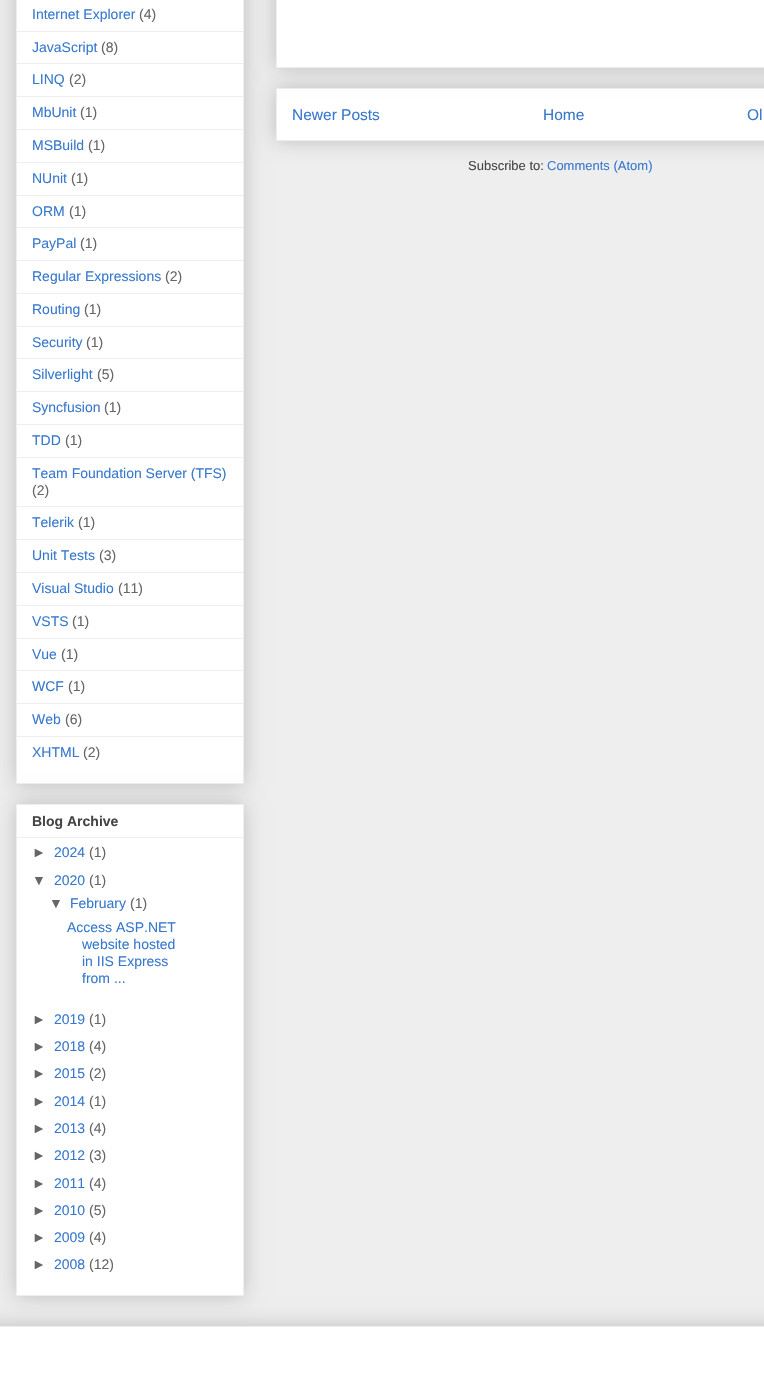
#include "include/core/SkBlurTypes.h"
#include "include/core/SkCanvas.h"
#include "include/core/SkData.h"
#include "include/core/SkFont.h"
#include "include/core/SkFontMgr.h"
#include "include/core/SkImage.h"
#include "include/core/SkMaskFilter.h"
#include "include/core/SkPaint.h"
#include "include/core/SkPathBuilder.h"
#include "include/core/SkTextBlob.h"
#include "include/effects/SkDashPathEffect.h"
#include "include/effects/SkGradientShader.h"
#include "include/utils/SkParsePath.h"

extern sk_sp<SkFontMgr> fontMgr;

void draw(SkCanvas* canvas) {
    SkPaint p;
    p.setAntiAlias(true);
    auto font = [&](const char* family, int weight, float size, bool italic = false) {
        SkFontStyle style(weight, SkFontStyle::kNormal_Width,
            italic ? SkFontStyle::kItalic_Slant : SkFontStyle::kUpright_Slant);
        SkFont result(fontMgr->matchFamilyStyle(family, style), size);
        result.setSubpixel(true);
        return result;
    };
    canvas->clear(0xFFEEEEEE);
    p.setColor(0x33000000);
    p.setMaskFilter(SkMaskFilter::MakeBlur(kNormal_SkBlurStyle, 10));
    canvas->drawRect(SkRect::MakeLTRB(16, -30, 244, 784), p);
    p.setMaskFilter(nullptr);
    p.setColor(0xFFFFFFFF);
    canvas->drawRect(SkRect::MakeLTRB(16.5f, -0.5f, 243.5f, 783.5f), p);
    p.setStyle(SkPaint::kStroke_Style);
    p.setStrokeWidth(1);
    p.setColor(0xFFEEEEEE);
    canvas->drawRect(SkRect::MakeLTRB(16.5f, -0.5f, 243.5f, 783.5f), p);
    auto font1 = font("Liberation Sans", 400, 14);
    p.setStyle(SkPaint::kFill_Style);
    p.setColor(0xFF3778CD);
    canvas->drawString("Internet Explorer", 32, 19, font1, p);
    p.setColor(0xFF666666);
    canvas->drawString("(4)", 139, 19, font1, p);
    p.setColor(0xFFEEEEEE);
    canvas->drawRect(SkRect::MakeLTRB(17, 31, 243, 32), p);
    p.setColor(0xFF3778CD);
    canvas->drawString("JavaScript", 32, 52, font1, p);
    p.setColor(0xFF666666);
    canvas->drawString("(8)", 101, 52, font1, p);
    p.setColor(0xFFEEEEEE);
    canvas->drawRect(SkRect::MakeLTRB(17, 63, 243, 64), p);
    p.setColor(0xFF3778CD);
    canvas->drawString("LINQ", 32, 84, font1, p);
    p.setColor(0xFF666666);
    canvas->drawString("(2)", 69, 84, font1, p);
    p.setColor(0xFFEEEEEE);
    canvas->drawRect(SkRect::MakeLTRB(17, 96, 243, 97), p);
    p.setColor(0xFF3778CD);
    canvas->drawString("MbUnit", 32, 117, font1, p);
    p.setColor(0xFF666666);
    canvas->drawString("(1)", 80, 117, font1, p);
    p.setColor(0xFFEEEEEE);
    canvas->drawRect(SkRect::MakeLTRB(17, 129, 243, 130), p);
    p.setColor(0xFF3778CD);
    canvas->drawString("MSBuild", 32, 150, font1, p);
    p.setColor(0xFF666666);
    canvas->drawString("(1)", 88, 150, font1, p);
    p.setColor(0xFFEEEEEE);
    canvas->drawRect(SkRect::MakeLTRB(17, 162, 243, 163), p);
    p.setColor(0xFF3778CD);
    canvas->drawString("NUnit", 32, 183, font1, p);
    p.setColor(0xFF666666);
    canvas->drawString("(1)", 71, 183, font1, p);
    p.setColor(0xFFEEEEEE);
    canvas->drawRect(SkRect::MakeLTRB(17, 195, 243, 196), p);
    p.setColor(0xFF3778CD);
    canvas->drawString("ORM", 32, 216, font1, p);
    p.setColor(0xFF666666);
    canvas->drawString("(1)", 69, 216, font1, p);
    p.setColor(0xFFEEEEEE);
    canvas->drawRect(SkRect::MakeLTRB(17, 227, 243, 228), p);
    p.setColor(0xFF3778CD);
    canvas->drawString("PayPal", 32, 248, font1, p);
    p.setColor(0xFF666666);
    canvas->drawString("(1)", 80, 248, font1, p);
    p.setColor(0xFFEEEEEE);
    canvas->drawRect(SkRect::MakeLTRB(17, 260, 243, 261), p);
    p.setColor(0xFF3778CD);
    canvas->drawString("Regular Expressions", 32, 281, font1, p);
    p.setColor(0xFF666666);
    canvas->drawString("(2)", 165, 281, font1, p);
    p.setColor(0xFFEEEEEE);
    canvas->drawRect(SkRect::MakeLTRB(17, 293, 243, 294), p);
    p.setColor(0xFF3778CD);
    canvas->drawString("Routing", 32, 314, font1, p);
    p.setColor(0xFF666666);
    canvas->drawString("(1)", 84, 314, font1, p);
    p.setColor(0xFFEEEEEE);
    canvas->drawRect(SkRect::MakeLTRB(17, 326, 243, 327), p);
    p.setColor(0xFF3778CD);
    canvas->drawString("Security", 32, 347, font1, p);
    p.setColor(0xFF666666);
    canvas->drawString("(1)", 86, 347, font1, p);
    p.setColor(0xFFEEEEEE);
    canvas->drawRect(SkRect::MakeLTRB(17, 358, 243, 359), p);
    p.setColor(0xFF3778CD);
    canvas->drawString("Silverlight", 32, 379, font1, p);
    p.setColor(0xFF666666);
    canvas->drawString("(5)", 97, 379, font1, p);
    p.setColor(0xFFEEEEEE);
    canvas->drawRect(SkRect::MakeLTRB(17, 391, 243, 392), p);
    p.setColor(0xFF3778CD);
    canvas->drawString("Syncfusion", 32, 412, font1, p);
    p.setColor(0xFF666666);
    canvas->drawString("(1)", 104, 412, font1, p);
    p.setColor(0xFFEEEEEE);
    canvas->drawRect(SkRect::MakeLTRB(17, 424, 243, 425), p);
    p.setColor(0xFF3778CD);
    canvas->drawString("TDD", 32, 445, font1, p);
    p.setColor(0xFF666666);
    canvas->drawString("(1)", 65, 445, font1, p);
    p.setColor(0xFFEEEEEE);
    canvas->drawRect(SkRect::MakeLTRB(17, 457, 243, 458), p);
    p.setColor(0xFF3778CD);
    canvas->drawString("Team Foundation Server (TFS)", 32, 478, font1, p);
    p.setColor(0xFF666666);
    canvas->drawString("(2)", 32, 495, font1, p);
    p.setColor(0xFFEEEEEE);
    canvas->drawRect(SkRect::MakeLTRB(17, 506, 243, 507), p);
    p.setColor(0xFF3778CD);
    canvas->drawString("Telerik", 32, 527, font1, p);
    p.setColor(0xFF666666);
    canvas->drawString("(1)", 78, 527, font1, p);
    p.setColor(0xFFEEEEEE);
    canvas->drawRect(SkRect::MakeLTRB(17, 539, 243, 540), p);
    p.setColor(0xFF3778CD);
    canvas->drawString("Unit Tests", 32, 560, font1, p);
    p.setColor(0xFF666666);
    canvas->drawString("(3)", 99, 560, font1, p);
    p.setColor(0xFFEEEEEE);
    canvas->drawRect(SkRect::MakeLTRB(17, 572, 243, 573), p);
    p.setColor(0xFF3778CD);
    canvas->drawString("Visual Studio", 32, 593, font1, p);
    p.setColor(0xFF666666);
    canvas->drawString("(11)", 118, 593, font1, p);
    p.setColor(0xFFEEEEEE);
    canvas->drawRect(SkRect::MakeLTRB(17, 605, 243, 606), p);
    p.setColor(0xFF3778CD);
    canvas->drawString("VSTS", 32, 626, font1, p);
    p.setColor(0xFF666666);
    canvas->drawString("(1)", 72, 626, font1, p);
    p.setColor(0xFFEEEEEE);
    canvas->drawRect(SkRect::MakeLTRB(17, 638, 243, 639), p);
    p.setColor(0xFF3778CD);
    canvas->drawString("Vue", 32, 659, font1, p);
    p.setColor(0xFF666666);
    canvas->drawString("(1)", 61, 659, font1, p);
    p.setColor(0xFFEEEEEE);
    canvas->drawRect(SkRect::MakeLTRB(17, 670, 243, 671), p);
    p.setColor(0xFF3778CD);
    canvas->drawString("WCF", 32, 691, font1, p);
    p.setColor(0xFF666666);
    canvas->drawString("(1)", 68, 691, font1, p);
    p.setColor(0xFFEEEEEE);
    canvas->drawRect(SkRect::MakeLTRB(17, 703, 243, 704), p);
    p.setColor(0xFF3778CD);
    canvas->drawString("Web", 32, 724, font1, p);
    p.setColor(0xFF666666);
    canvas->drawString("(6)", 65, 724, font1, p);
    p.setColor(0xFFEEEEEE);
    canvas->drawRect(SkRect::MakeLTRB(17, 736, 243, 737), p);
    p.setColor(0xFF3778CD);
    canvas->drawString("XHTML", 32, 757, font1, p);
    p.setColor(0xFF666666);
    canvas->drawString("(2)", 83, 757, font1, p);
    p.setColor(0x33000000);
    p.setMaskFilter(SkMaskFilter::MakeBlur(kNormal_SkBlurStyle, 10));
    canvas->drawRect(SkRect::MakeLTRB(16, 804, 244, 1296), p);
    p.setMaskFilter(nullptr);
    p.setColor(0xFFFFFFFF);
    canvas->drawRect(SkRect::MakeLTRB(16.5f, 804.5f, 243.5f, 1295.5f), p);
    p.setStyle(SkPaint::kStroke_Style);
    p.setColor(0xFFEEEEEE);
    canvas->drawRect(SkRect::MakeLTRB(16.5f, 804.5f, 243.5f, 1295.5f), p);
    auto font2 = font("Liberation Sans", 700, 14);
    p.setStyle(SkPaint::kFill_Style);
    p.setColor(0xFF444444);
    canvas->drawString("Blog Archive", 32, 826, font2, p);
    p.setColor(0xFFEEEEEE);
    canvas->drawRect(SkRect::MakeLTRB(17, 837, 243, 838), p);
    p.setColor(0xFF666666);
    canvas->drawString("►", 32, 857, font1, p);
    p.setColor(0xFF3778CD);
    canvas->drawString("2024", 54, 857, font1, p);
    p.setColor(0xFF666666);
    canvas->drawString("(1)", 89, 857, font1, p);
    canvas->drawString("▼", 32, 885, font1, p);
    p.setColor(0xFF3778CD);
    canvas->drawString("2020", 54, 885, font1, p);
    p.setColor(0xFF666666);
    canvas->drawString("(1)", 89, 885, font1, p);
    canvas->drawString("▼", 49, 908, font1, p);
    p.setColor(0xFF3778CD);
    canvas->drawString("February", 70, 908, font1, p);
    p.setColor(0xFF666666);
    canvas->drawString("(1)", 130, 908, font1, p);
    p.setColor(0xFF3778CD);
    {
        const struct { const char* s; float x, y; } items[] = {
            {"Access ASP.NET", 67, 932},
            {"website hosted", 82, 949},
            {"in IIS Express", 82, 966},
            {"from ...", 82, 983},
        };
        for (auto [s, x, y] : items) {
            canvas->drawString(s, x, y, font1, p);
        }
    }
    p.setColor(0xFF666666);
    canvas->drawString("►", 32, 1024, font1, p);
    p.setColor(0xFF3778CD);
    canvas->drawString("2019", 54, 1024, font1, p);
    p.setColor(0xFF666666);
    canvas->drawString("(1)", 89, 1024, font1, p);
    canvas->drawString("►", 32, 1051, font1, p);
    p.setColor(0xFF3778CD);
    canvas->drawString("2018", 54, 1051, font1, p);
    p.setColor(0xFF666666);
    canvas->drawString("(4)", 89, 1051, font1, p);
    canvas->drawString("►", 32, 1078, font1, p);
    p.setColor(0xFF3778CD);
    canvas->drawString("2015", 54, 1078, font1, p);
    p.setColor(0xFF666666);
    canvas->drawString("(2)", 89, 1078, font1, p);
    canvas->drawString("►", 32, 1106, font1, p);
    p.setColor(0xFF3778CD);
    canvas->drawString("2014", 54, 1106, font1, p);
    p.setColor(0xFF666666);
    canvas->drawString("(1)", 89, 1106, font1, p);
    canvas->drawString("►", 32, 1133, font1, p);
    p.setColor(0xFF3778CD);
    canvas->drawString("2013", 54, 1133, font1, p);
    p.setColor(0xFF666666);
    canvas->drawString("(4)", 89, 1133, font1, p);
    canvas->drawString("►", 32, 1160, font1, p);
    p.setColor(0xFF3778CD);
    canvas->drawString("2012", 54, 1160, font1, p);
    p.setColor(0xFF666666);
    canvas->drawString("(3)", 89, 1160, font1, p);
    canvas->drawString("►", 32, 1188, font1, p);
    p.setColor(0xFF3778CD);
    canvas->drawString("2011", 54, 1188, font1, p);
    p.setColor(0xFF666666);
    canvas->drawString("(4)", 89, 1188, font1, p);
    canvas->drawString("►", 32, 1215, font1, p);
    p.setColor(0xFF3778CD);
    canvas->drawString("2010", 54, 1215, font1, p);
    p.setColor(0xFF666666);
    canvas->drawString("(5)", 89, 1215, font1, p);
    canvas->drawString("►", 32, 1242, font1, p);
    p.setColor(0xFF3778CD);
    canvas->drawString("2009", 54, 1242, font1, p);
    p.setColor(0xFF666666);
    canvas->drawString("(4)", 89, 1242, font1, p);
    canvas->drawString("►", 32, 1269, font1, p);
    p.setColor(0xFF3778CD);
    canvas->drawString("2008", 54, 1269, font1, p);
    p.setColor(0xFF666666);
    canvas->drawString("(12)", 89, 1269, font1, p);
    p.setColor(0x33000000);
    p.setMaskFilter(SkMaskFilter::MakeBlur(kNormal_SkBlurStyle, 10));
    canvas->drawRect(SkRect::MakeLTRB(276, 88, 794, 141), p);
    p.setMaskFilter(nullptr);
    p.setColor(0xFFFFFFFF);
    canvas->drawRect(SkRect::MakeLTRB(276.5f, 88.5f, 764.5f, 140.5f), p);
    p.setStyle(SkPaint::kStroke_Style);
    p.setColor(0xFFEEEEEE);
    canvas->drawRect(SkRect::MakeLTRB(276.5f, 88.5f, 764.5f, 140.5f), p);
    p.setStyle(SkPaint::kFill_Style);
    p.setColor(0x33000000);
    p.setMaskFilter(SkMaskFilter::MakeBlur(kNormal_SkBlurStyle, 10));
    canvas->drawRect(SkRect::MakeLTRB(276, -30, 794, 68), p);
    p.setMaskFilter(nullptr);
    p.setColor(0xFFFFFFFF);
    canvas->drawRect(SkRect::MakeLTRB(276.5f, -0.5f, 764.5f, 67.5f), p);
    p.setStyle(SkPaint::kStroke_Style);
    p.setColor(0xFFEEEEEE);
    canvas->drawRect(SkRect::MakeLTRB(276.5f, -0.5f, 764.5f, 67.5f), p);
    auto font3 = font("Liberation Sans", 400, 15.5f);
    p.setStyle(SkPaint::kFill_Style);
    p.setColor(0xFF3778CD);
    {
        const struct { const char* s; float x, y; } items[] = {
            {"Newer Posts", 292, 120},
            {"Home", 543, 120},
            {"Ol", 747, 120},
        };
        for (auto [s, x, y] : items) {
            canvas->drawString(s, x, y, font3, p);
        }
    }
    auto font4 = font("Liberation Sans", 400, 13);
    p.setColor(0xFF444444);
    canvas->drawString("Subscribe to:", 468, 170, font4, p);
    p.setColor(0xFF3778CD);
    canvas->drawString("Comments (Atom)", 547, 170, font4, p);
    p.setColor(0x33000000);
    p.setMaskFilter(SkMaskFilter::MakeBlur(kNormal_SkBlurStyle, 10));
    canvas->drawRect(SkRect::MakeLTRB(-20, 1326, 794, 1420), p);
    p.setMaskFilter(nullptr);
    p.setColor(0xFFFFFFFF);
    canvas->drawRect(SkRect::MakeLTRB(0, 1327, 764, 1390), p);
    p.setColor(0xFFEEEEEE);
    canvas->drawRect(SkRect::MakeLTRB(0, 1326, 764, 1327), p);
}
